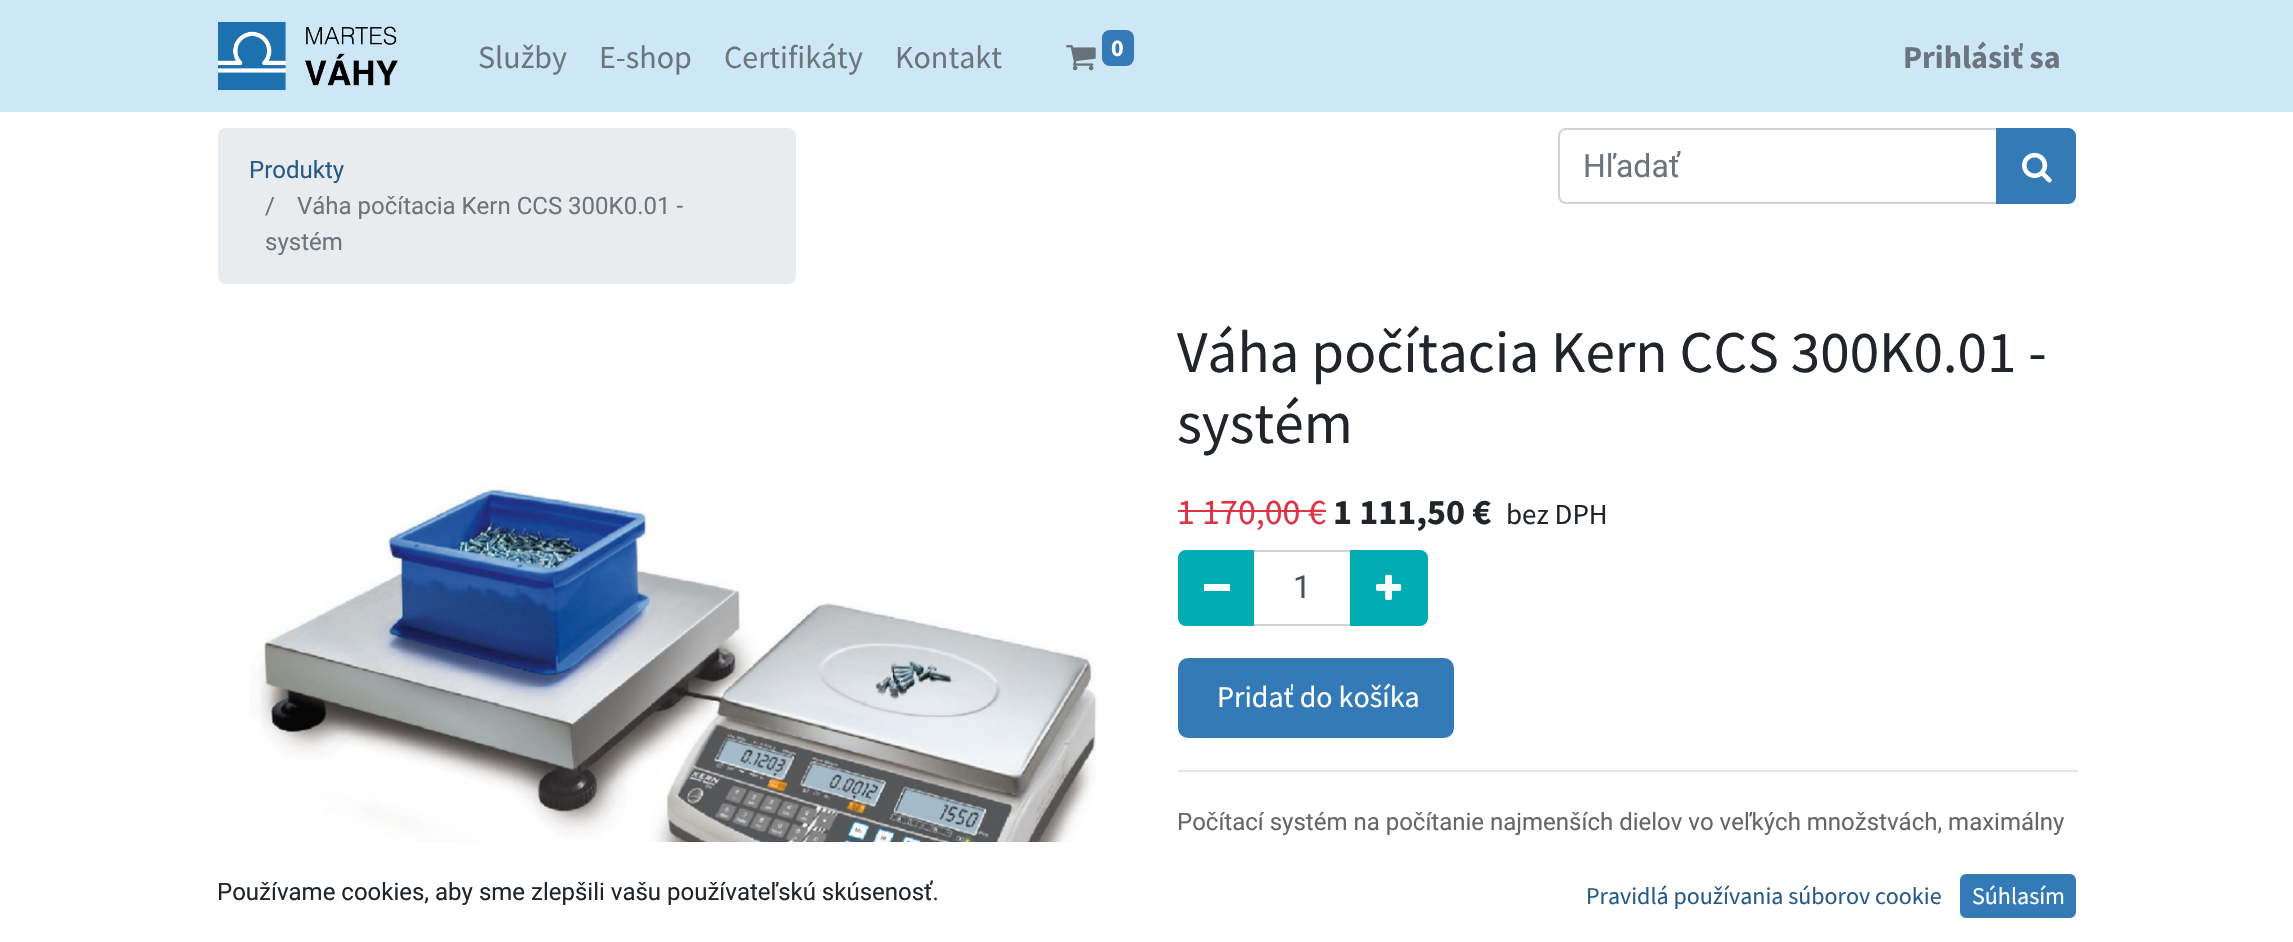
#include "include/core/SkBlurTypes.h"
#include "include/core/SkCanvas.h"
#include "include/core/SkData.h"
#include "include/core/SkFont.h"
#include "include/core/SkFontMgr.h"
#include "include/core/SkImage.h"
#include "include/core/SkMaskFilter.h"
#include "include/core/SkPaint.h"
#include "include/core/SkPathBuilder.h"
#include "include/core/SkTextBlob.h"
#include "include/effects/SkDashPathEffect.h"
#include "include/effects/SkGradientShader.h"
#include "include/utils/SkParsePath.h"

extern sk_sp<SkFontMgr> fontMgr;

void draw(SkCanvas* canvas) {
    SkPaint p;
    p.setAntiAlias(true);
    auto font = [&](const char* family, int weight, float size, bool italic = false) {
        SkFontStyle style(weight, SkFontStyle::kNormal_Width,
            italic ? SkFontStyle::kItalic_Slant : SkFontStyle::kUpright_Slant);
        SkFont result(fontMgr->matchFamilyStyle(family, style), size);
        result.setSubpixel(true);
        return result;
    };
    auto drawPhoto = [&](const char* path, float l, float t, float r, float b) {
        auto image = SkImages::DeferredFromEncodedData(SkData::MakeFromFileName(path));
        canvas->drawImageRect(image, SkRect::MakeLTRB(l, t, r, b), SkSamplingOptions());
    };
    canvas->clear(0xFFFFFFFF);
    p.setColor(0xFFCEE7F7);
    canvas->drawRect(SkRect::MakeLTRB(0, 0, 2293, 112), p);
    drawPhoto("media/1.png", 218, 22, 398, 90);
    auto font1 = font("Source Sans Pro", 400, 32);
    p.setColor(0xFF6C757D);
    {
        const struct { const char* s; float x, y; } items[] = {
            {"Služby", 478, 68},
            {"E-shop", 599, 68},
            {"Certifikáty", 724, 68},
            {"Kontakt", 895, 68},
        };
        for (auto [s, x, y] : items) {
            canvas->drawString(s, x, y, font1, p);
        }
    }
    drawPhoto("media/2.png", 1066, 45, 1096, 71);
    p.setColor(0xFF337AB7);
    canvas->drawRoundRect(SkRect::MakeLTRB(1102, 30, 1134, 66), 8, 8, p);
    auto font2 = font("Source Sans Pro", 700, 24);
    p.setColor(0xFFFFFFFF);
    canvas->drawString("0", 1111, 56, font2, p);
    auto font3 = font("Source Sans Pro", 700, 32);
    p.setColor(0xFF6C757D);
    canvas->drawString("Prihlásiť sa", 1903, 68, font3, p);
    p.setColor(0xFFE9ECEF);
    canvas->drawRoundRect(SkRect::MakeLTRB(218, 128, 796, 284), 8, 8, p);
    auto font4 = font("Roboto", 400, 24);
    p.setColor(0xFF265A87);
    canvas->drawString("Produkty", 249, 178, font4, p);
    p.setColor(0xFF6C757D);
    {
        const struct { const char* s; float x, y; } items[] = {
            {"/", 265, 214},
            {"Váha počítacia Kern CCS 300K0.01 -", 297, 214},
            {"systém", 265, 250},
        };
        for (auto [s, x, y] : items) {
            canvas->drawString(s, x, y, font4, p);
        }
    }
    p.setStyle(SkPaint::kStroke_Style);
    p.setStrokeWidth(2);
    p.setColor(0xFFCED4DA);
    canvas->drawPath(SkPathBuilder().moveTo(1566, 129).lineTo(1997, 129).lineTo(1997, 203).lineTo(1566, 203).cubicTo(1562, 203, 1559, 200, 1559, 196).lineTo(1559, 136).cubicTo(1559, 132, 1562, 129, 1566, 129).close().detach(), p);
    auto font5 = font("Roboto", 400, 32);
    p.setStyle(SkPaint::kFill_Style);
    p.setColor(0xFF6C757D);
    canvas->drawString("Hľadať", 1583, 177, font5, p);
    p.setColor(0xFF337AB7);
    canvas->drawPath(SkPathBuilder().moveTo(1997, 129).lineTo(2068, 129).cubicTo(2072, 129, 2075, 132, 2075, 136).lineTo(2075, 196).cubicTo(2075, 200, 2072, 203, 2068, 203).lineTo(1997, 203).close().detach(), p);
    p.setStyle(SkPaint::kStroke_Style);
    canvas->drawPath(SkPathBuilder().moveTo(1997, 129).lineTo(2068, 129).cubicTo(2072, 129, 2075, 132, 2075, 136).lineTo(2075, 196).cubicTo(2075, 200, 2072, 203, 2068, 203).lineTo(1997, 203).close().detach(), p);
    drawPhoto("media/3.png", 2022, 152, 2052, 183);
    drawPhoto("media/4.png", 250, 486, 1097, 842);
    auto font6 = font("Source Sans Pro", 400, 59.25f);
    p.setStyle(SkPaint::kFill_Style);
    p.setColor(0xFF212529);
    canvas->drawString("Váha počítacia Kern CCS 300K0.01 -", 1177, 372, font6, p);
    canvas->drawString("systém", 1177, 443, font6, p);
    auto font7 = font("Source Sans Pro", 400, 36);
    p.setColor(0xFFDC3545);
    canvas->drawString("1 170,00 €", 1177, 524, font7, p);
    canvas->drawRect(SkRect::MakeLTRB(1178, 510, 1326, 512), p);
    auto font8 = font("Source Sans Pro", 700, 36);
    p.setColor(0xFF212529);
    canvas->drawString("1 111,50 €", 1333, 524, font8, p);
    auto font9 = font("Source Sans Pro", 400, 29);
    canvas->drawString("bez DPH", 1506, 524, font9, p);
    p.setStyle(SkPaint::kStroke_Style);
    p.setColor(0xFFCED4DA);
    canvas->drawRect(SkRect::MakeLTRB(1253, 551, 1351, 625), p);
    p.setStyle(SkPaint::kFill_Style);
    p.setColor(0xFF00ACB1);
    canvas->drawPath(SkPathBuilder().moveTo(1186, 551).lineTo(1253, 551).lineTo(1253, 625).lineTo(1186, 625).cubicTo(1182, 625, 1179, 622, 1179, 618).lineTo(1179, 558).cubicTo(1179, 554, 1182, 551, 1186, 551).close().detach(), p);
    p.setStyle(SkPaint::kStroke_Style);
    canvas->drawPath(SkPathBuilder().moveTo(1186, 551).lineTo(1253, 551).lineTo(1253, 625).lineTo(1186, 625).cubicTo(1182, 625, 1179, 622, 1179, 618).lineTo(1179, 558).cubicTo(1179, 554, 1182, 551, 1186, 551).close().detach(), p);
    p.setStyle(SkPaint::kFill_Style);
    p.setColor(0xFFFFFFFF);
    canvas->drawRect(SkRect::MakeLTRB(1204, 584, 1230, 591), p);
    p.setColor(0xFF495057);
    canvas->drawString("1", 1293, 598, font5, p);
    p.setColor(0xFF00ACB1);
    canvas->drawPath(SkPathBuilder().moveTo(1351, 551).lineTo(1420, 551).cubicTo(1424, 551, 1427, 554, 1427, 558).lineTo(1427, 618).cubicTo(1427, 622, 1424, 625, 1420, 625).lineTo(1351, 625).close().detach(), p);
    p.setStyle(SkPaint::kStroke_Style);
    canvas->drawPath(SkPathBuilder().moveTo(1351, 551).lineTo(1420, 551).cubicTo(1424, 551, 1427, 554, 1427, 558).lineTo(1427, 618).cubicTo(1427, 622, 1424, 625, 1420, 625).lineTo(1351, 625).close().detach(), p);
    drawPhoto("media/5.png", 1376, 574, 1402, 600);
    p.setStyle(SkPaint::kFill_Style);
    p.setColor(0xFF337AB7);
    canvas->drawRoundRect(SkRect::MakeLTRB(1179, 659, 1453, 737), 9, 9, p);
    p.setStyle(SkPaint::kStroke_Style);
    canvas->drawRoundRect(SkRect::MakeLTRB(1179, 659, 1453, 737), 9, 9, p);
    auto font10 = font("Source Sans Pro", 400, 30);
    p.setStyle(SkPaint::kFill_Style);
    p.setColor(0xFFFFFFFF);
    canvas->drawString("Pridať do košíka", 1217, 707, font10, p);
    p.setColor(0xFFE6E6E6);
    canvas->drawRect(SkRect::MakeLTRB(1178, 770, 2078, 772), p);
    p.setColor(0xFF646669);
    canvas->drawString("Počítací systém na počítanie najmenších dielov vo veľkých množstvách, maximálny", 1177, 830, font4, p);
    p.setColor(0xFF212529);
    canvas->drawString("Používame cookies, aby sme zlepšili vašu používateľskú skúsenosť.", 217, 900, font4, p);
    auto font11 = font("Source Sans Pro", 400, 24);
    p.setColor(0xFF265A87);
    canvas->drawString("Pravidlá používania súborov cookie", 1586, 904, font11, p);
    p.setColor(0xFF337AB7);
    canvas->drawRoundRect(SkRect::MakeLTRB(1961, 875, 2075, 917), 5, 5, p);
    p.setStyle(SkPaint::kStroke_Style);
    canvas->drawRoundRect(SkRect::MakeLTRB(1961, 875, 2075, 917), 5, 5, p);
    p.setStyle(SkPaint::kFill_Style);
    p.setColor(0xFFFFFFFF);
    canvas->drawString("Súhlasím", 1972, 904, font11, p);
}
